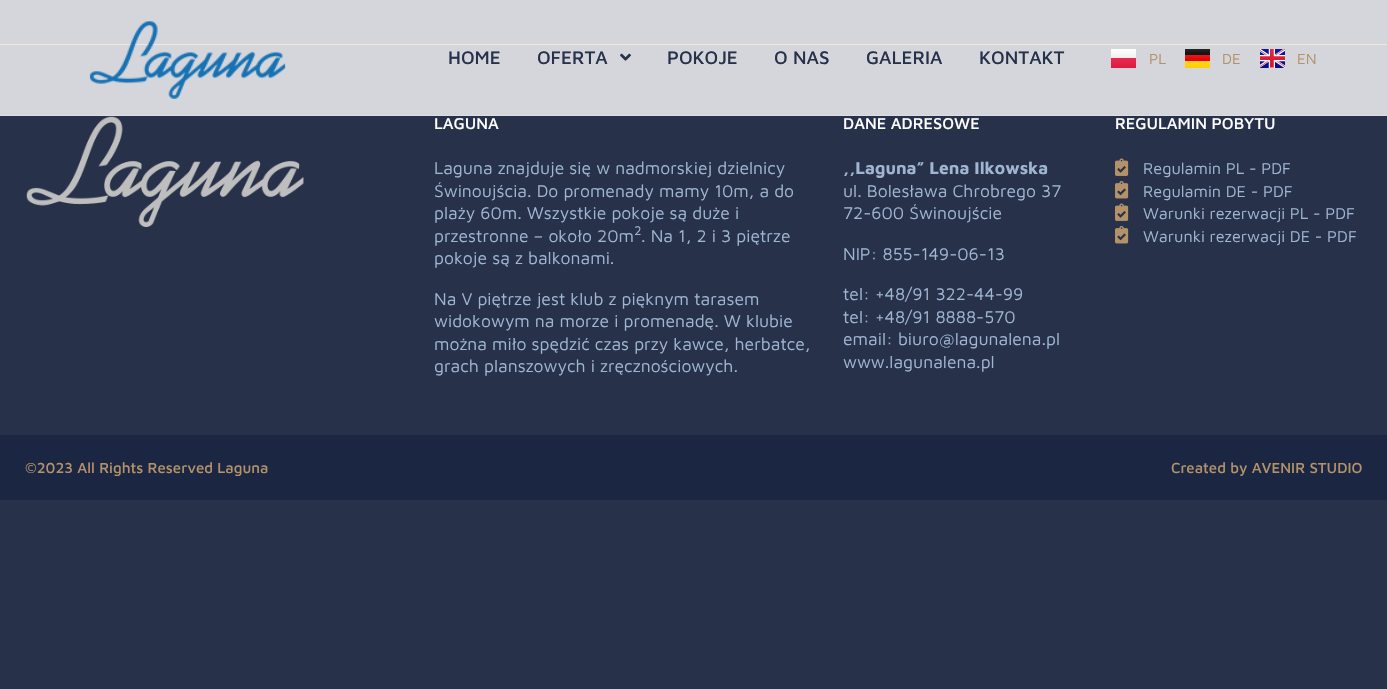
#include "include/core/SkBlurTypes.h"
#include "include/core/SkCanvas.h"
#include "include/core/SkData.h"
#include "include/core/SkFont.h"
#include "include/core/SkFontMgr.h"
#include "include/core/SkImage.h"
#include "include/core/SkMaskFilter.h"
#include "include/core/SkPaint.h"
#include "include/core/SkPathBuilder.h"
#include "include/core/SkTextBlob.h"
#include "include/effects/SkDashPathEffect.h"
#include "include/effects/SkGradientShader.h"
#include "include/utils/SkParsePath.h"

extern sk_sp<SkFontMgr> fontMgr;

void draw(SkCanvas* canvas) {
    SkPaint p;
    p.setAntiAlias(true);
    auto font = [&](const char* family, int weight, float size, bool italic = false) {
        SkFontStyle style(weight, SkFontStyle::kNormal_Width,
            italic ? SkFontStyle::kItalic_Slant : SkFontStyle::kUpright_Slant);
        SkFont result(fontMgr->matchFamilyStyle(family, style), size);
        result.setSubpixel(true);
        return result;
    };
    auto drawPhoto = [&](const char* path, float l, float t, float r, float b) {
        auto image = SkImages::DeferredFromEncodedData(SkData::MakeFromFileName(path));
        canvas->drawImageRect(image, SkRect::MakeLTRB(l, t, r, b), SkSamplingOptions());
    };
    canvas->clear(0xFF27314A);
    {
        const struct { float l, t, r, b; SkColor color; } items[] = {
            {0, 0, 1387, 115, 0xFFD4D6DB},
            {0, 115, 1387, 116, 0xFFDDDEE2},
            {0, 44, 1387, 45, 0xFFF0E9E1},
        };
        for (auto [l, t, r, b, color] : items) {
            p.setColor(color);
            canvas->drawRect(SkRect::MakeLTRB(l, t, r, b), p);
        }
    }
    drawPhoto("media/1.png", 89, 21, 286, 99);
    auto font1 = font("Maven Pro", 500, 18.75f);
    p.setColor(0xFF27314A);
    canvas->drawString("HOME", 448, 64, font1, p);
    canvas->drawString("OFERTA", 537, 64, font1, p);
    drawPhoto("media/2.png", 620, 53, 631, 61);
    {
        const struct { const char* s; float x, y; } items[] = {
            {"POKOJE", 667, 64},
            {"O NAS", 774, 64},
            {"GALERIA", 866, 64},
            {"KONTAKT", 979, 64},
        };
        for (auto [s, x, y] : items) {
            canvas->drawString(s, x, y, font1, p);
        }
    }
    {
        const SkColor colors[] = {0xFFFFFFFF, 0xFFF0F0F0};
        const float stops[] = {0, 1};
        const SkPoint ends[] = {{1123, 49}, {1123, 58}};
        p.setShader(SkGradientShader::MakeLinear(ends, colors, stops, 2, SkTileMode::kClamp));
        p.setAlpha(255);
    }
    canvas->drawRect(SkRect::MakeLTRB(1111, 49, 1136, 58), p);
    {
        const SkColor colors[] = {0xFFEB2A50, 0xFFDA1B40};
        const float stops[] = {0, 1};
        const SkPoint ends[] = {{1123, 58}, {1123, 68}};
        p.setShader(SkGradientShader::MakeLinear(ends, colors, stops, 2, SkTileMode::kClamp));
        p.setAlpha(255);
    }
    canvas->drawRect(SkRect::MakeLTRB(1111, 58, 1136, 68), p);
    auto font2 = font("Maven Pro", 400, 15);
    p.setShader(nullptr);
    p.setColor(0xFFB39269);
    canvas->drawString("PL", 1149, 64, font2, p);
    {
        const SkColor colors[] = {0xFF262626, 0xFF0D0D0D};
        const float stops[] = {0, 1};
        const SkPoint ends[] = {{1197, 49}, {1197, 55}};
        p.setShader(SkGradientShader::MakeLinear(ends, colors, stops, 2, SkTileMode::kClamp));
        p.setAlpha(255);
    }
    canvas->drawRect(SkRect::MakeLTRB(1185, 49, 1210, 55), p);
    {
        const SkColor colors[] = {0xFFF01515, 0xFFDE0000};
        const float stops[] = {0, 1};
        const SkPoint ends[] = {{1197, 55}, {1197, 61}};
        p.setShader(SkGradientShader::MakeLinear(ends, colors, stops, 2, SkTileMode::kClamp));
        p.setAlpha(255);
    }
    canvas->drawRect(SkRect::MakeLTRB(1185, 55, 1210, 61), p);
    {
        const SkColor colors[] = {0xFFFFD521, 0xFFFFCF00};
        const float stops[] = {0, 1};
        const SkPoint ends[] = {{1197, 61}, {1197, 68}};
        p.setShader(SkGradientShader::MakeLinear(ends, colors, stops, 2, SkTileMode::kClamp));
        p.setAlpha(255);
    }
    canvas->drawRect(SkRect::MakeLTRB(1185, 61, 1210, 68), p);
    p.setShader(nullptr);
    p.setColor(0xFFB39269);
    canvas->drawString("DE", 1222, 64, font2, p);
    drawPhoto("media/3.png", 1260, 49, 1285, 68);
    canvas->drawString("EN", 1297, 64, font2, p);
    drawPhoto("media/4.png", 26, 116, 304, 227);
    auto font3 = font("Maven Pro", 500, 16.25f);
    p.setColor(0xFFFFFFFF);
    canvas->drawString("LAGUNA", 434, 129, font3, p);
    auto font4 = font("Maven Pro", 400, 17.5f);
    p.setColor(0xFF9FB5D1);
    {
        const struct { const char* s; float x, y; } items[] = {
            {"Laguna znajduje się w nadmorskiej dzielnicy", 434, 174},
            {"Świnoujścia. Do promenady mamy 10m, a do", 434, 197},
            {"plaży 60m. Wszystkie pokoje są duże i", 434, 219},
            {"przestronne – około 20m", 434, 242},
        };
        for (auto [s, x, y] : items) {
            canvas->drawString(s, x, y, font4, p);
        }
    }
    auto font5 = font("Maven Pro", 400, 13);
    canvas->drawString("2", 634, 235, font5, p);
    {
        const struct { const char* s; float x, y; } items[] = {
            {". Na 1, 2 i 3 piętrze", 641, 242},
            {"pokoje są z balkonami.", 434, 264},
            {"Na V piętrze jest klub z pięknym tarasem", 434, 305},
            {"widokowym na morze i promenadę. W klubie", 434, 327},
            {"można miło spędzić czas przy kawce, herbatce,", 434, 350},
            {"grach planszowych i zręcznościowych.", 434, 372},
        };
        for (auto [s, x, y] : items) {
            canvas->drawString(s, x, y, font4, p);
        }
    }
    p.setColor(0xFFFFFFFF);
    canvas->drawString("DANE ADRESOWE", 843, 129, font3, p);
    auto font6 = font("Maven Pro", 700, 17.5f);
    p.setColor(0xFF9FB5D1);
    canvas->drawString(",,Laguna” Lena Ilkowska", 843, 174, font6, p);
    {
        const struct { const char* s; float x, y; } items[] = {
            {"ul. Bolesława Chrobrego 37", 843, 197},
            {"72-600 Świnoujście", 843, 219},
            {"NIP: 855-149-06-13", 843, 260},
            {"tel: +48/91 322-44-99", 843, 300},
            {"tel: +48/91 8888-570", 843, 323},
            {"email: biuro@lagunalena.pl", 843, 345},
            {"www.lagunalena.pl", 843, 368},
        };
        for (auto [s, x, y] : items) {
            canvas->drawString(s, x, y, font4, p);
        }
    }
    p.setColor(0xFFFFFFFF);
    canvas->drawString("REGULAMIN POBYTU", 1115, 129, font3, p);
    drawPhoto("media/5.png", 1115, 158, 1129, 176);
    auto font7 = font("Maven Pro", 400, 16.25f);
    p.setColor(0xFF9FB5D1);
    canvas->drawString("Regulamin PL - PDF", 1143, 174, font7, p);
    drawPhoto("media/6.png", 1115, 181, 1129, 199);
    canvas->drawString("Regulamin DE - PDF", 1143, 197, font7, p);
    drawPhoto("media/5.png", 1115, 203, 1129, 221);
    canvas->drawString("Warunki rezerwacji PL - PDF", 1143, 219, font7, p);
    drawPhoto("media/6.png", 1115, 226, 1129, 244);
    canvas->drawString("Warunki rezerwacji DE - PDF", 1143, 242, font7, p);
    p.setColor(0xFF1A2642);
    canvas->drawRect(SkRect::MakeLTRB(0, 435, 1387, 500), p);
    auto font8 = font("Maven Pro", 500, 15);
    p.setColor(0xFFB39269);
    canvas->drawString("©2023 All Rights Reserved Laguna", 25, 473, font8, p);
    canvas->drawString("Created by AVENIR STUDIO", 1171, 473, font8, p);
}
